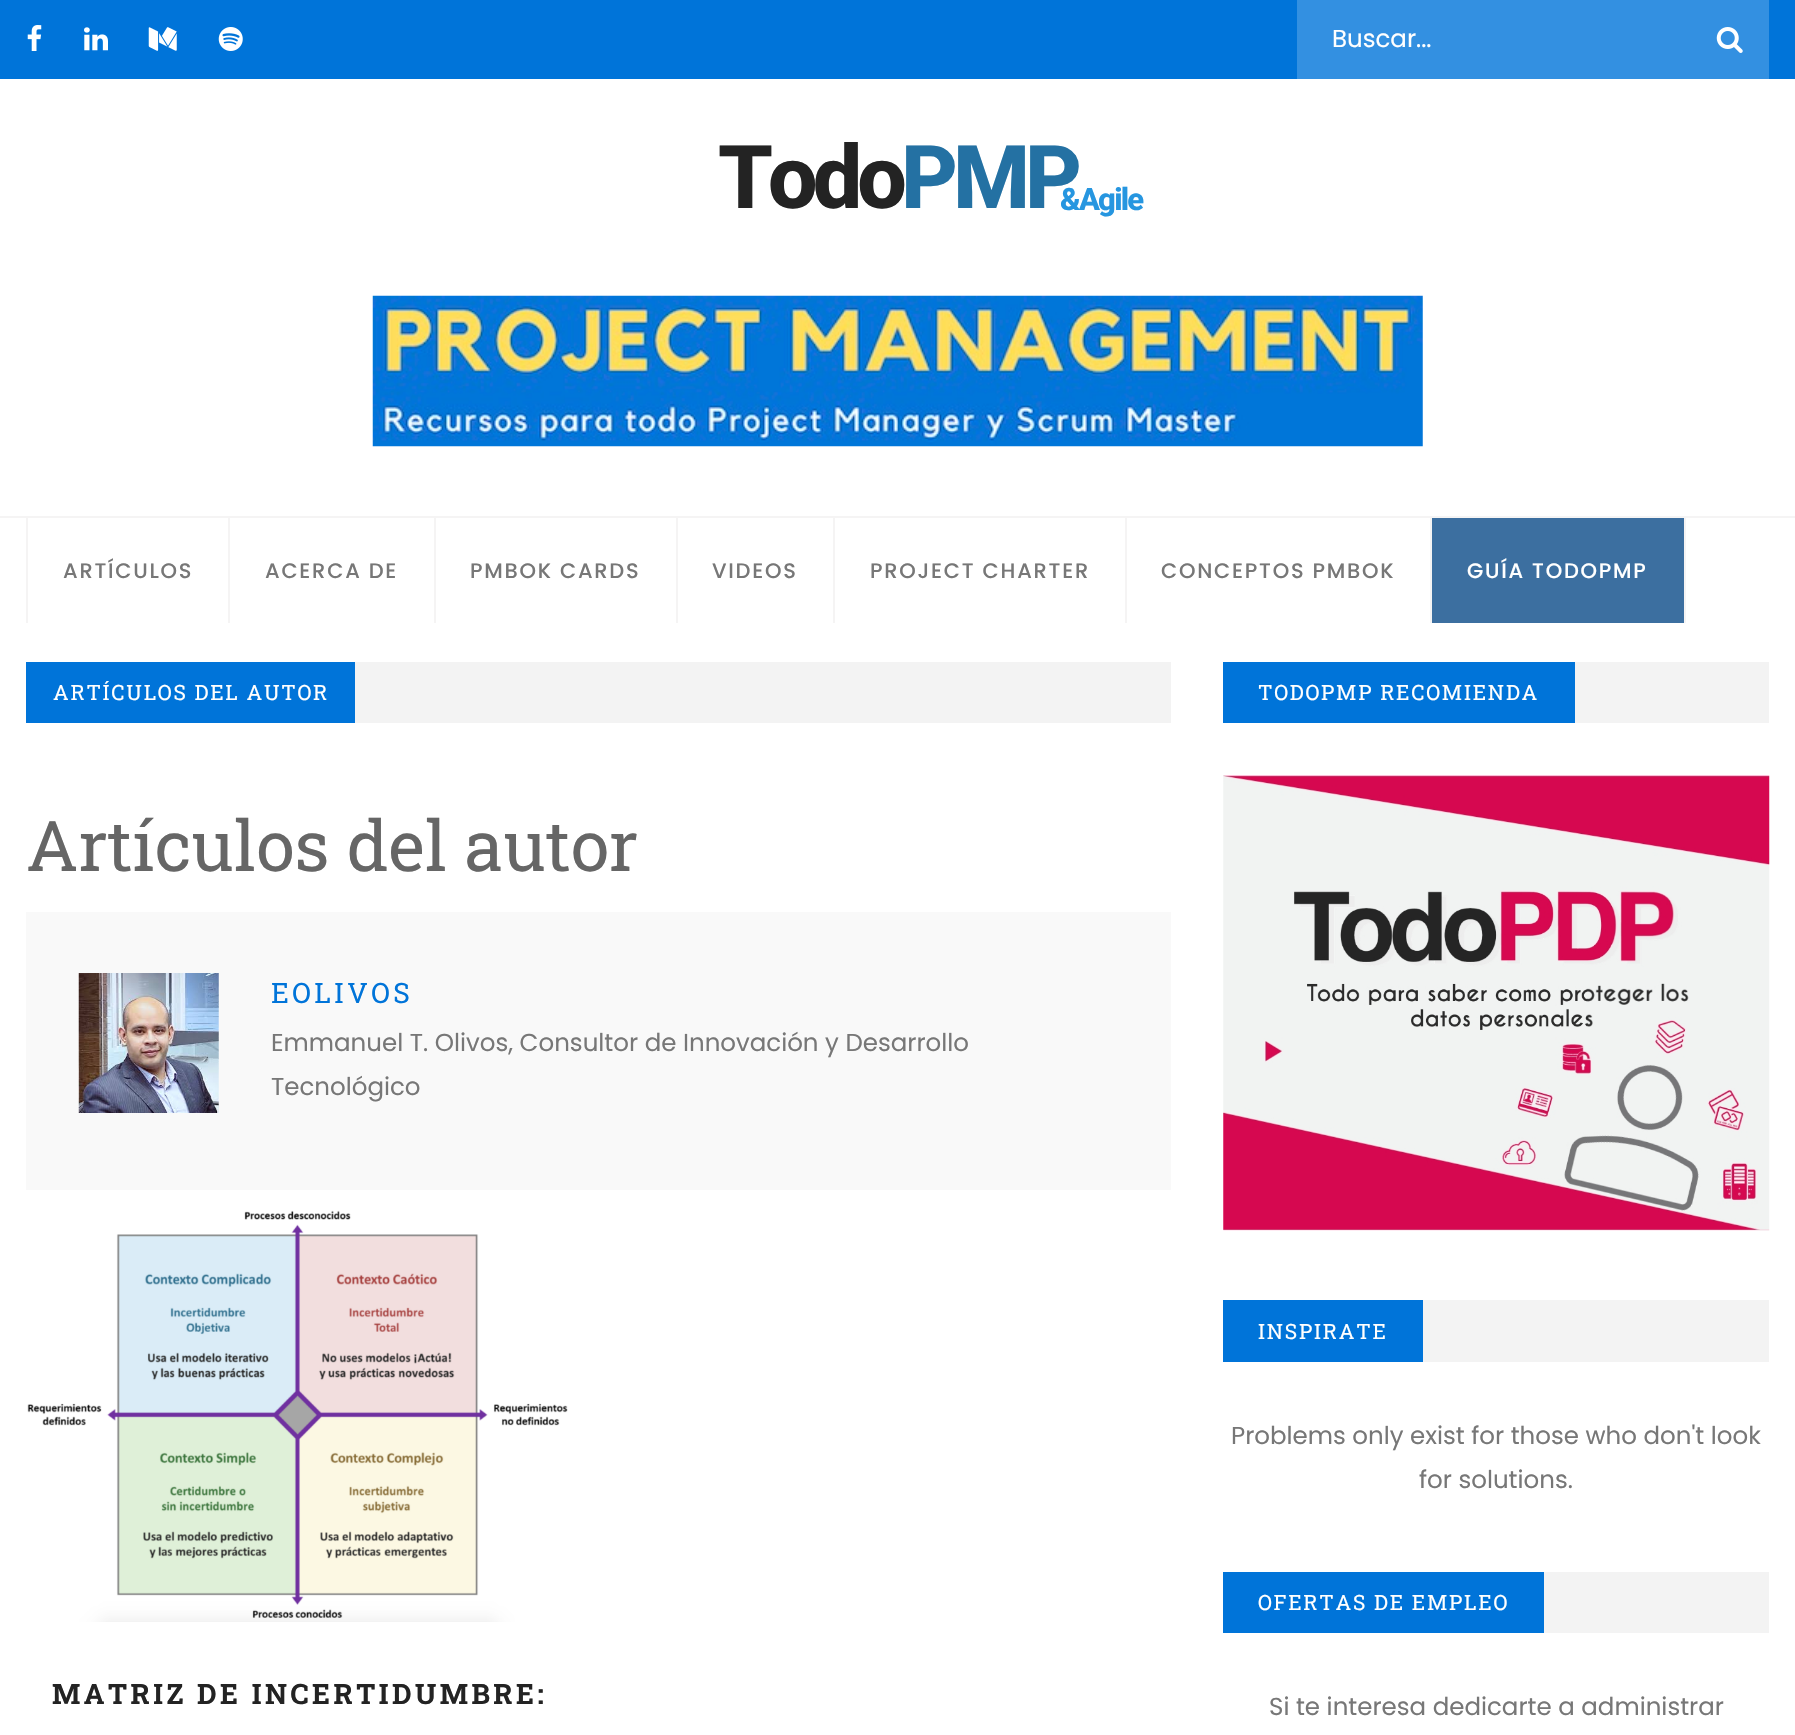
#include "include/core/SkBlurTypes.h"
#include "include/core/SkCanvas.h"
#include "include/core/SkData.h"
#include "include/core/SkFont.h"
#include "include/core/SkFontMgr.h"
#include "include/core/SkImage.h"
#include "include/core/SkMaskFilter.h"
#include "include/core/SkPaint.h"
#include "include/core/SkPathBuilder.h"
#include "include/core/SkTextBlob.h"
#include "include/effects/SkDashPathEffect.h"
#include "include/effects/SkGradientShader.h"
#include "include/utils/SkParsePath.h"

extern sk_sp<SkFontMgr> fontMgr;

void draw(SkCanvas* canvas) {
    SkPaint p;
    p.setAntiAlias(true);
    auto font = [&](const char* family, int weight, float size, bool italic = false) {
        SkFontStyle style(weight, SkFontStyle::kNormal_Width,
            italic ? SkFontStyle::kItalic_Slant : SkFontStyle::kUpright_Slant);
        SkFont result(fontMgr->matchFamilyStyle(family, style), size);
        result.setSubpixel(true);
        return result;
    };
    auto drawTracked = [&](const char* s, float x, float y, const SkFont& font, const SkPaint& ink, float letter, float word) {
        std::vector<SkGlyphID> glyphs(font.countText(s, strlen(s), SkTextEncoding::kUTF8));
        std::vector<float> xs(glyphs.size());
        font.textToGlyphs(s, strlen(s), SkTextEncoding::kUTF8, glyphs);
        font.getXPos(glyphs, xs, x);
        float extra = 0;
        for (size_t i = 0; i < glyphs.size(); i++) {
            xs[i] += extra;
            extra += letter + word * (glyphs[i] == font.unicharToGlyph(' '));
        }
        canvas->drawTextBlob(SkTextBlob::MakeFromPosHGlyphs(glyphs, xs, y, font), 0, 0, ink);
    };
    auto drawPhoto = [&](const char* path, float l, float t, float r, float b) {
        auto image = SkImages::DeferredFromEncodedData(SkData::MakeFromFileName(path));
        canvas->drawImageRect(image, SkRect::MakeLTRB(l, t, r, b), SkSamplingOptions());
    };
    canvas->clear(0xFFFFFFFF);
    p.setColor(0xFF0074D9);
    canvas->drawRect(SkRect::MakeLTRB(0, 0, 1795, 79), p);
    drawPhoto("media/1.png", 27, 25, 42, 51);
    drawPhoto("media/2.png", 84, 27, 108, 51);
    drawPhoto("media/3.png", 148, 27, 177, 51);
    drawPhoto("media/4.png", 218, 27, 243, 51);
    p.setColor(0xFF3390E1);
    canvas->drawRect(SkRect::MakeLTRB(1297, 0, 1769, 79), p);
    auto font1 = font("Poppins", 400, 24.5f);
    p.setColor(0xFFFFFFFF);
    canvas->drawString("Buscar...", 1332, 47, font1, p);
    drawPhoto("media/5.png", 1716, 27, 1743, 53);
    auto font2 = font("Roboto", 800, 88);
    p.setColor(0xFF232323);
    drawTracked("Todo", 718, 208, font2, p, -5, 0);
    p.setColor(0xFF2471A3);
    drawTracked("PMP", 901, 208, font2, p, -5, 0);
    auto font3 = font("Roboto", 800, 31);
    p.setColor(0xFF2696E0);
    drawTracked("&Agile", 1060, 210, font3, p, -1.75f, 0);
    drawPhoto("media/6.png", 372, 295, 1423, 447);
    p.setColor(0xFFF5F4F4);
    canvas->drawRect(SkRect::MakeLTRB(0, 516, 1795, 518), p);
    canvas->drawRect(SkRect::MakeLTRB(26, 518, 28, 623), p);
    auto font4 = font("Poppins", 500, 21);
    p.setColor(0xFF777777);
    drawTracked("ARTÍCULOS", 63, 578, font4, p, 1.75f, 0);
    p.setColor(0xFFF5F4F4);
    canvas->drawRect(SkRect::MakeLTRB(228, 518, 230, 623), p);
    p.setColor(0xFF777777);
    drawTracked("ACERCA DE", 265, 578, font4, p, 1.75f, 0);
    p.setColor(0xFFF5F4F4);
    canvas->drawRect(SkRect::MakeLTRB(434, 518, 436, 623), p);
    p.setColor(0xFF777777);
    drawTracked("PMBOK CARDS", 470, 578, font4, p, 1.75f, 0);
    p.setColor(0xFFF5F4F4);
    canvas->drawRect(SkRect::MakeLTRB(676, 518, 678, 623), p);
    p.setColor(0xFF777777);
    drawTracked("VIDEOS", 712, 578, font4, p, 1.75f, 0);
    p.setColor(0xFFF5F4F4);
    canvas->drawRect(SkRect::MakeLTRB(833, 518, 835, 623), p);
    p.setColor(0xFF777777);
    drawTracked("PROJECT CHARTER", 870, 578, font4, p, 1.75f, 0);
    p.setColor(0xFFF5F4F4);
    canvas->drawRect(SkRect::MakeLTRB(1125, 518, 1127, 623), p);
    p.setColor(0xFF777777);
    drawTracked("CONCEPTOS PMBOK", 1161, 578, font4, p, 1.75f, 0);
    {
        const struct { float l, t, r, b; SkColor color; } items[] = {
            {1684, 518, 1686, 623, 0xFFF5F4F4},
            {1430, 518, 1432, 623, 0xFFF5F4F4},
            {1432, 518, 1684, 623, 0xFF3C6FA0},
        };
        for (auto [l, t, r, b, color] : items) {
            p.setColor(color);
            canvas->drawRect(SkRect::MakeLTRB(l, t, r, b), p);
        }
    }
    p.setColor(0xFFFFFFFF);
    drawTracked("GUÍA TODOPMP", 1467, 578, font4, p, 1.75f, 0);
    p.setColor(0xFFF3F3F3);
    canvas->drawRect(SkRect::MakeLTRB(355, 662, 1171, 723), p);
    p.setColor(0xFF0074D9);
    canvas->drawRect(SkRect::MakeLTRB(26, 662, 355, 723), p);
    auto font5 = font("Roboto Slab", 400, 21);
    p.setColor(0xFFFFFFFF);
    drawTracked("ARTÍCULOS DEL AUTOR", 53, 700, font5, p, 1.75f, 0);
    auto font6 = font("Roboto Slab", 400, 70);
    p.setColor(0xFF666666);
    canvas->drawString("Artículos del autor", 26, 871, font6, p);
    p.setColor(0xFFF9F9F9);
    canvas->drawRect(SkRect::MakeLTRB(26, 912, 1171, 1190), p);
    drawPhoto("media/7.png", 78, 973, 219, 1113);
    auto font7 = font("Roboto Slab", 400, 28);
    p.setColor(0xFF0074D9);
    drawTracked("EOLIVOS", 271, 1003, font7, p, 3.5f, 0);
    p.setColor(0xFF777777);
    canvas->drawString("Emmanuel T. Olivos, Consultor de Innovación y Desarrollo", 271, 1051, font1, p);
    canvas->drawString("Tecnológico", 271, 1095, font1, p);
    drawPhoto("media/8.png", 27, 1210, 568, 1622);
    auto font8 = font("Roboto Slab", 700, 28);
    p.setColor(0xFF232323);
    drawTracked("MATRIZ DE INCERTIDUMBRE:", 52, 1704, font8, p, 3.5f, 0);
    p.setColor(0xFFF3F3F3);
    canvas->drawRect(SkRect::MakeLTRB(1575, 662, 1769, 723), p);
    p.setColor(0xFF0074D9);
    canvas->drawRect(SkRect::MakeLTRB(1223, 662, 1575, 723), p);
    p.setColor(0xFFFFFFFF);
    drawTracked("TODOPMP RECOMIENDA", 1258, 700, font5, p, 1.75f, 0);
    drawPhoto("media/9.png", 1223, 775, 1770, 1231);
    p.setColor(0xFFF3F3F3);
    canvas->drawRect(SkRect::MakeLTRB(1423, 1300, 1769, 1362), p);
    p.setColor(0xFF0074D9);
    canvas->drawRect(SkRect::MakeLTRB(1223, 1300, 1423, 1362), p);
    p.setColor(0xFFFFFFFF);
    drawTracked("INSPIRATE", 1258, 1339, font5, p, 1.75f, 0);
    p.setColor(0xFF777777);
    canvas->drawString("Problems only exist for those who don't look", 1231, 1444, font1, p);
    canvas->drawString("for solutions.", 1419, 1488, font1, p);
    p.setColor(0xFFF3F3F3);
    canvas->drawRect(SkRect::MakeLTRB(1544, 1572, 1769, 1633), p);
    p.setColor(0xFF0074D9);
    canvas->drawRect(SkRect::MakeLTRB(1223, 1572, 1544, 1633), p);
    p.setColor(0xFFFFFFFF);
    drawTracked("OFERTAS DE EMPLEO", 1258, 1610, font5, p, 1.75f, 0);
    p.setColor(0xFF777777);
    canvas->drawString("Si te interesa dedicarte a administrar", 1269, 1715, font1, p);
}
